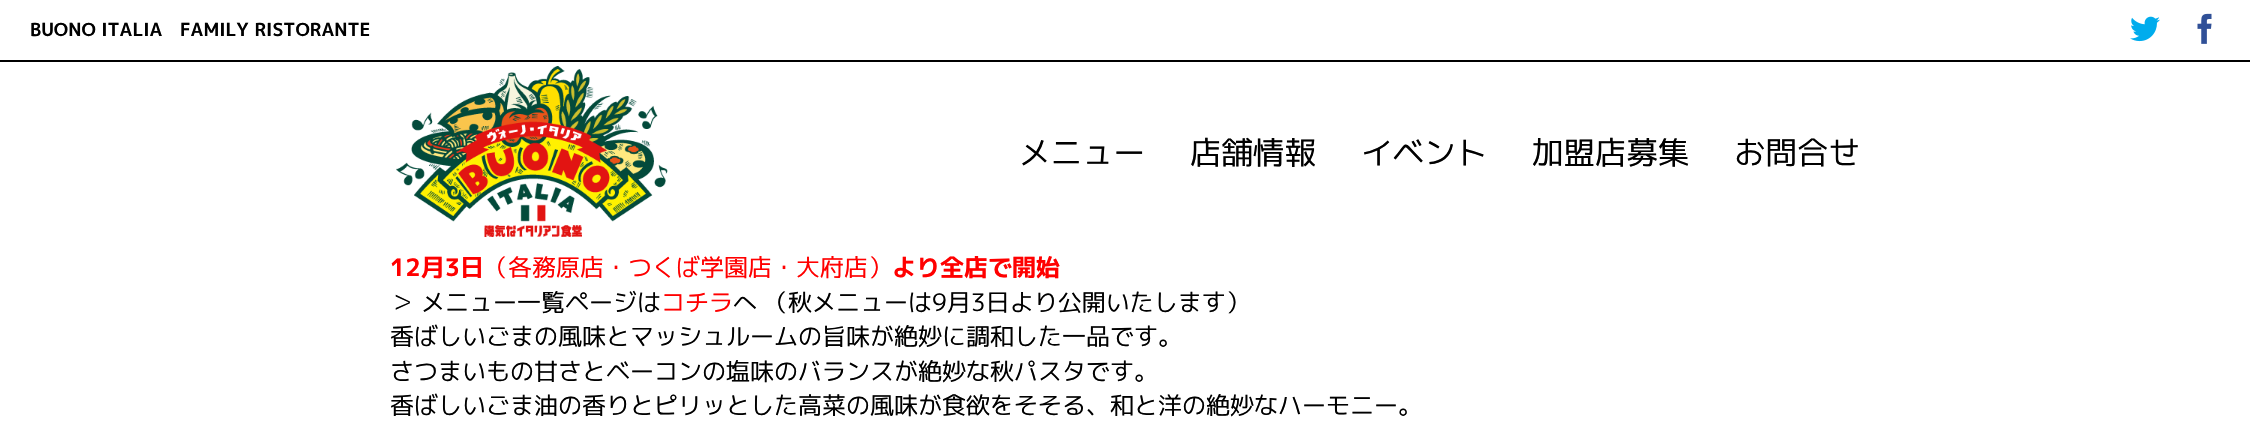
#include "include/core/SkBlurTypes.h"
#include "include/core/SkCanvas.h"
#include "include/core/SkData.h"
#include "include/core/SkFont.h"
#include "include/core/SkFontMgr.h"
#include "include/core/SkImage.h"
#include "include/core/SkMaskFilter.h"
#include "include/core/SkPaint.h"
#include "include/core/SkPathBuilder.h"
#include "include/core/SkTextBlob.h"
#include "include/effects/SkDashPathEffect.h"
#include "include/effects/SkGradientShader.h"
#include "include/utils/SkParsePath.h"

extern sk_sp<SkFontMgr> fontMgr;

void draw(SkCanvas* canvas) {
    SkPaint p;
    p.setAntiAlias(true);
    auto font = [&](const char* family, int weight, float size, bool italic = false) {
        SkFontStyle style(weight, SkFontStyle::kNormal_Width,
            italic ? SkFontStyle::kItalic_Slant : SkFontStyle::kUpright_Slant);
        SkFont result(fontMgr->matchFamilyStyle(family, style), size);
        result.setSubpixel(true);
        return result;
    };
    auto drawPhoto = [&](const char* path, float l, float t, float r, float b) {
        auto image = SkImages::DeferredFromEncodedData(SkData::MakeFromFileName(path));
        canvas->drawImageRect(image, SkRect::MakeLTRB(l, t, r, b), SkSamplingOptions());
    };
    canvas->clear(0xFFFFFFFF);
    p.setColor(0xFF000000);
    canvas->drawRect(SkRect::MakeLTRB(0, 60, 2250, 62), p);
    auto font1 = font("M PLUS 1p", 700, 18);
    canvas->drawString("BUONO ITALIA", 30, 36, font1, p);
    canvas->drawString("FAMILY RISTORANTE", 180, 36, font1, p);
    drawPhoto("media/1.png", 2130, 16, 2160, 42);
    drawPhoto("media/2.png", 2197, 13, 2212, 44);
    drawPhoto("media/3.png", 396, 66, 668, 237);
    auto font2 = font("M PLUS 1p", 400, 31.5f);
    {
        const struct { const char* s; float x, y; } items[] = {
            {"メニュー", 1019, 164},
            {"店舗情報", 1190, 164},
            {"イベント", 1361, 164},
            {"加盟店募集", 1532, 164},
            {"お問合せ", 1734, 164},
        };
        for (auto [s, x, y] : items) {
            canvas->drawString(s, x, y, font2, p);
        }
    }
    auto font3 = font("M PLUS 1p", 700, 24);
    p.setColor(0xFFFF0000);
    canvas->drawString("12月3日", 390, 276, font3, p);
    auto font4 = font("M PLUS 1p", 400, 24);
    canvas->drawString("（各務原店・つくば学園店・大府店）", 484, 276, font4, p);
    canvas->drawString("より全店で開始", 892, 276, font3, p);
    p.setColor(0xFF000000);
    canvas->drawString("＞ メニュー一覧ページは", 390, 311, font4, p);
    p.setColor(0xFFFF0000);
    canvas->drawString("コチラ", 661, 311, font4, p);
    p.setColor(0xFF000000);
    {
        const struct { const char* s; float x, y; } items[] = {
            {"へ （秋メニューは9月3日より公開いたします）", 733, 311},
            {"香ばしいごまの風味とマッシュルームの旨味が絶妙に調和した一品です。", 390, 345},
            {"さつまいもの甘さとベーコンの塩味のバランスが絶妙な秋パスタです。", 390, 380},
            {"香ばしいごま油の香りとピリッとした高菜の風味が食欲をそそる、和と洋の絶妙なハーモニー。", 390, 414},
        };
        for (auto [s, x, y] : items) {
            canvas->drawString(s, x, y, font4, p);
        }
    }
}
